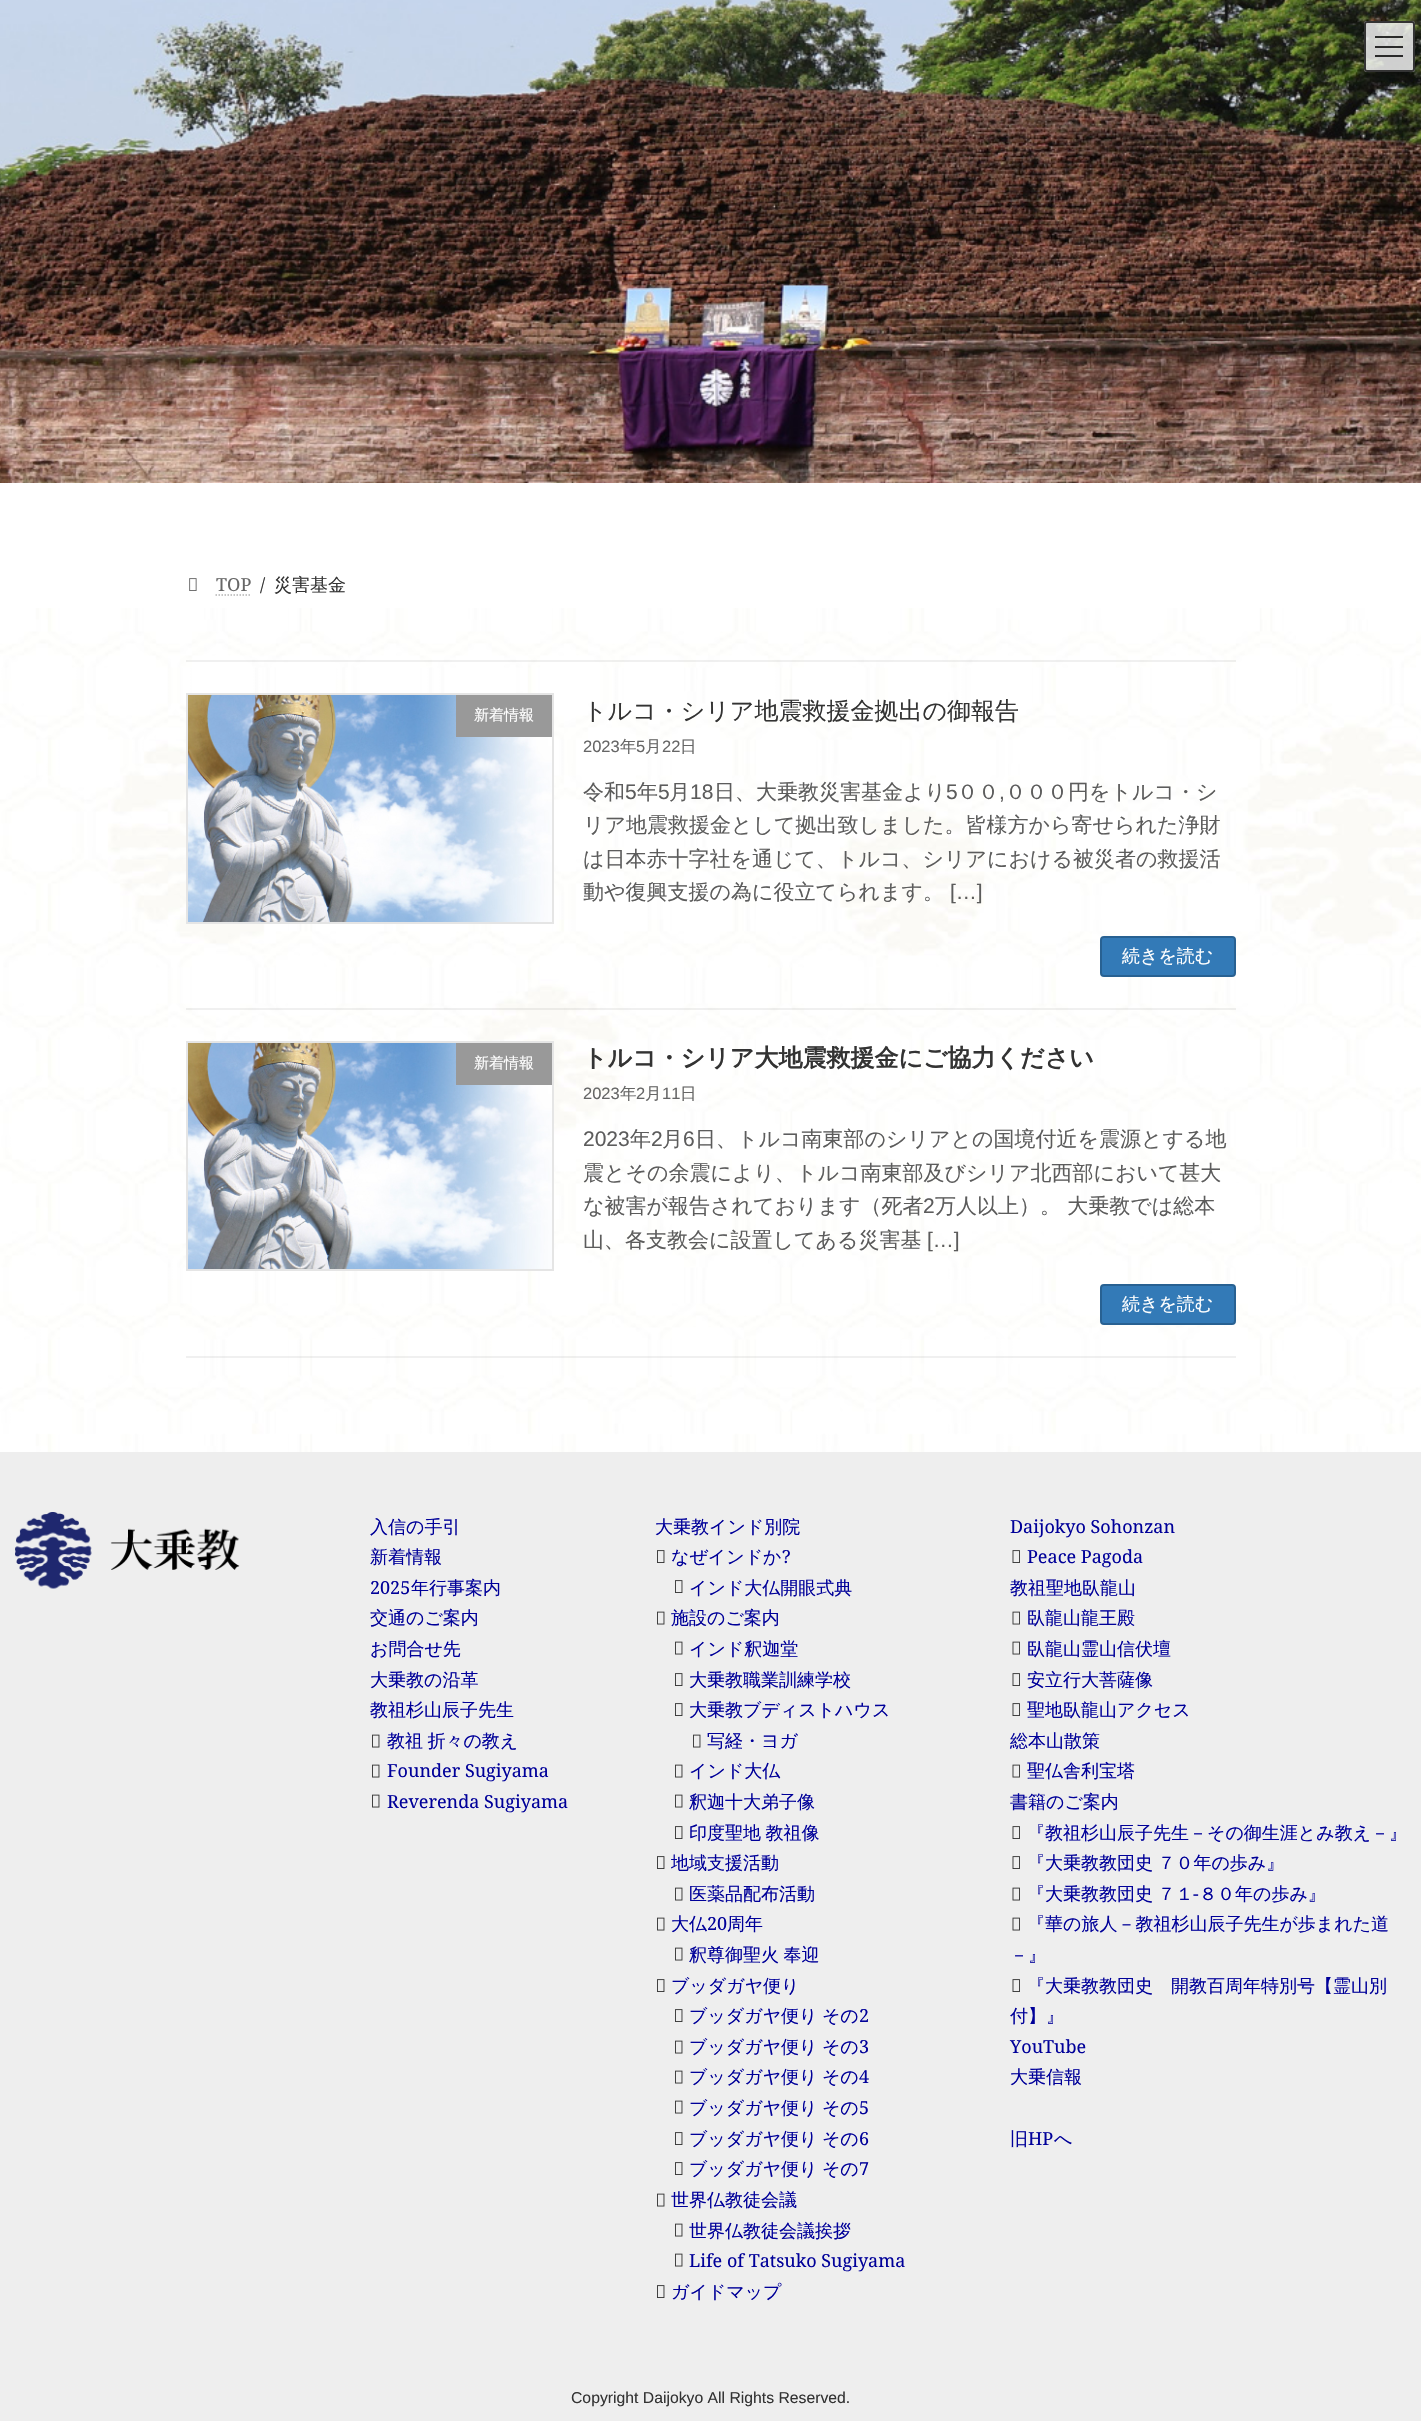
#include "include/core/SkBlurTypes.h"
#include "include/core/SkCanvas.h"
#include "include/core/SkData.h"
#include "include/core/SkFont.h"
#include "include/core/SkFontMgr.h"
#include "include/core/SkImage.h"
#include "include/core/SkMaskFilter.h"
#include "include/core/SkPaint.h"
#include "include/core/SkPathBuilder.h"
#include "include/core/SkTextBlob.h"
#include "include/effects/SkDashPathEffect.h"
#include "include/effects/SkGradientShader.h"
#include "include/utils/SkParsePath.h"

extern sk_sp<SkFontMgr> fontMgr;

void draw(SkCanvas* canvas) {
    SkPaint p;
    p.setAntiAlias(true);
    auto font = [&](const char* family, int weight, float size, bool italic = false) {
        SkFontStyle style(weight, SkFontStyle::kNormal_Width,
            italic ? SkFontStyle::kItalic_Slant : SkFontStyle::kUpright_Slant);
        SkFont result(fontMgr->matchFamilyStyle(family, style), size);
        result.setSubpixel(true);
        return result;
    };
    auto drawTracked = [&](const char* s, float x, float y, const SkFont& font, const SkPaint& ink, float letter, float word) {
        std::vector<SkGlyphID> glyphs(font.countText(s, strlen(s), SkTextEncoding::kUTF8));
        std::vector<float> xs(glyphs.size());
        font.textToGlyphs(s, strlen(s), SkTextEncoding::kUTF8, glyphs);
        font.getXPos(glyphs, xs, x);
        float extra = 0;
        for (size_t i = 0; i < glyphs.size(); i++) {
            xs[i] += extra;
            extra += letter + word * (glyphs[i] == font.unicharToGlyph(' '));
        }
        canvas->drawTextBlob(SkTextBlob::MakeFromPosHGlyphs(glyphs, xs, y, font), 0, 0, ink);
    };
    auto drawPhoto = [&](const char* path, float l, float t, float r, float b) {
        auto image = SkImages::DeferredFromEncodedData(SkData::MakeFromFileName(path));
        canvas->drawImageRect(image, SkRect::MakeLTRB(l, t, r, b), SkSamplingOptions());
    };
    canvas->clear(0xFFFFFFFF);
    drawPhoto("media/1.png", 0, 0, 1421, 483);
    p.setColor(0xCCFFFFFF);
    canvas->drawRoundRect(SkRect::MakeLTRB(1364, 21, 1415, 72), 3, 3, p);
    {
        const struct { float l, t, r, b; SkColor color; } items[] = {
            {1375, 36, 1403, 38, 0xCC000000},
            {1375, 46, 1403, 48, 0xCC000000},
            {1375, 55, 1403, 57, 0xFF292929},
        };
        for (auto [l, t, r, b, color] : items) {
            p.setColor(color);
            canvas->drawRect(SkRect::MakeLTRB(l, t, r, b), p);
        }
    }
    p.setStyle(SkPaint::kStroke_Style);
    p.setStrokeWidth(2);
    p.setColor(0xFF333333);
    canvas->drawRoundRect(SkRect::MakeLTRB(1365, 22, 1414, 71), 2, 2, p);
    drawPhoto("media/2.png", 189, 578, 197, 591);
    auto font1 = font("Noto Serif", 400, 18);
    p.setStyle(SkPaint::kFill_Style);
    p.setColor(0xFF666666);
    canvas->drawString("TOP", 216, 591, font1, p);
    p.setStyle(SkPaint::kStroke_Style);
    p.setStrokeWidth(1.5f);
    p.setColor(0xFFB3B3B3);
    p.setPathEffect(SkDashPathEffect::Make({{1.5f, 1.5f}}, 0));
    canvas->drawPath(SkPathBuilder().moveTo(215.5f, 595).lineTo(251, 595).detach(), p);
    p.setPathEffect(nullptr);
    p.setStyle(SkPaint::kFill_Style);
    p.setColor(0xFF333333);
    canvas->drawString("/", 260, 591, font1, p);
    auto font2 = font("WenQuanYi Zen Hei", 500, 18);
    canvas->drawString("災害基金", 274, 591, font2, p);
    drawPhoto("media/3.png", 0, 608, 1421, 1452);
    p.setColor(0x0F000000);
    canvas->drawRect(SkRect::MakeLTRB(186, 660, 1236, 662), p);
    canvas->drawRect(SkRect::MakeLTRB(186, 1008, 1236, 1010), p);
    drawPhoto("media/4.png", 188, 695, 552, 922);
    p.setStyle(SkPaint::kStroke_Style);
    p.setStrokeWidth(2);
    p.setColor(0xFFE5E5E5);
    canvas->drawRect(SkRect::MakeLTRB(187, 694, 553, 923), p);
    p.setStyle(SkPaint::kFill_Style);
    p.setColor(0xFF999999);
    canvas->drawRect(SkRect::MakeLTRB(456, 695, 552, 737), p);
    auto font3 = font("WenQuanYi Zen Hei", 500, 15);
    p.setColor(0xFFFFFFFF);
    canvas->drawString("新着情報", 474, 720, font3, p);
    auto font4 = font("WenQuanYi Zen Hei", 500, 24);
    p.setColor(0xFF333333);
    canvas->drawString("トルコ・シリア地震救援金拠出の御報告", 583, 719, font4, p);
    auto font5 = font("Liberation Sans", 400, 16.5f);
    p.setColor(0xFF666666);
    canvas->drawString("2023", 583, 752, font5, p);
    auto font6 = font("WenQuanYi Zen Hei", 500, 16.5f);
    canvas->drawString("年", 620, 752, font6, p);
    canvas->drawString("5", 636, 752, font5, p);
    canvas->drawString("月", 645, 752, font6, p);
    canvas->drawString("22", 662, 752, font5, p);
    canvas->drawString("日", 680, 752, font6, p);
    auto font7 = font("WenQuanYi Zen Hei", 500, 21);
    p.setColor(0xFF5C5C5C);
    canvas->drawString("令和", 583, 799, font7, p);
    auto font8 = font("Liberation Sans", 400, 21);
    canvas->drawString("5", 625, 799, font8, p);
    canvas->drawString("年", 637, 799, font7, p);
    canvas->drawString("5", 658, 799, font8, p);
    canvas->drawString("月", 669, 799, font7, p);
    canvas->drawString("18", 690, 799, font8, p);
    canvas->drawString("日、大乗教災害基金より", 714, 799, font7, p);
    canvas->drawString("5", 946, 799, font8, p);
    canvas->drawString("００", 957, 799, font7, p);
    canvas->drawString(",", 999, 799, font8, p);
    {
        const struct { const char* s; float x, y; } items[] = {
            {"０００円をトルコ・シ", 1005, 799},
            {"リア地震救援金として拠出致しました。皆様方から寄せられた浄財", 583, 832},
            {"は日本赤十字社を通じて、トルコ、シリアにおける被災者の救援活", 583, 866},
            {"動や復興支援の為に役立てられます。", 583, 899},
        };
        for (auto [s, x, y] : items) {
            canvas->drawString(s, x, y, font7, p);
        }
    }
    canvas->drawString("[…]", 950, 899, font8, p);
    p.setColor(0xFF337AB7);
    canvas->drawRoundRect(SkRect::MakeLTRB(1101, 937, 1235, 976), 3, 3, p);
    p.setStyle(SkPaint::kStroke_Style);
    p.setColor(0xFF286192);
    canvas->drawRoundRect(SkRect::MakeLTRB(1101, 937, 1235, 976), 3, 3, p);
    p.setStyle(SkPaint::kFill_Style);
    p.setColor(0xFFFFFFFF);
    canvas->drawString("続きを読む", 1122, 962, font2, p);
    p.setColor(0x0F000000);
    canvas->drawRect(SkRect::MakeLTRB(186, 1356, 1236, 1358), p);
    drawPhoto("media/5.png", 188, 1043, 552, 1269);
    p.setStyle(SkPaint::kStroke_Style);
    p.setColor(0xFFE5E5E5);
    canvas->drawRect(SkRect::MakeLTRB(187, 1042, 553, 1270), p);
    p.setStyle(SkPaint::kFill_Style);
    p.setColor(0xFF999999);
    canvas->drawRect(SkRect::MakeLTRB(456, 1043, 552, 1085), p);
    p.setColor(0xFFFFFFFF);
    canvas->drawString("新着情報", 474, 1068, font3, p);
    auto font9 = font("WenQuanYi Zen Hei", 700, 24);
    p.setColor(0xFF333333);
    canvas->drawString("トルコ・シリア大地震救援金にご協力ください", 583, 1066, font9, p);
    p.setColor(0xFF666666);
    canvas->drawString("2023", 583, 1099, font5, p);
    canvas->drawString("年", 620, 1099, font6, p);
    canvas->drawString("2", 636, 1099, font5, p);
    canvas->drawString("月", 645, 1099, font6, p);
    canvas->drawString("11", 662, 1099, font5, p);
    canvas->drawString("日", 680, 1099, font6, p);
    p.setColor(0xFF5C5C5C);
    canvas->drawString("2023", 583, 1146, font8, p);
    canvas->drawString("年", 630, 1146, font7, p);
    canvas->drawString("2", 651, 1146, font8, p);
    canvas->drawString("月", 662, 1146, font7, p);
    canvas->drawString("6", 683, 1146, font8, p);
    {
        const struct { const char* s; float x, y; } items[] = {
            {"日、トルコ南東部のシリアとの国境付近を震源とする地", 695, 1146},
            {"震とその余震により、トルコ南東部及びシリア北西部において甚大", 583, 1180},
            {"な被害が報告されております（死者", 583, 1213},
        };
        for (auto [s, x, y] : items) {
            canvas->drawString(s, x, y, font7, p);
        }
    }
    canvas->drawString("2", 923, 1213, font8, p);
    canvas->drawString("万人以上）。 大乗教では総本", 935, 1213, font7, p);
    canvas->drawString("山、各支教会に設置してある災害基", 583, 1247, font7, p);
    canvas->drawString("[…]", 927, 1247, font8, p);
    p.setColor(0xFF337AB7);
    canvas->drawRoundRect(SkRect::MakeLTRB(1101, 1285, 1235, 1324), 3, 3, p);
    p.setStyle(SkPaint::kStroke_Style);
    p.setColor(0xFF286192);
    canvas->drawRoundRect(SkRect::MakeLTRB(1101, 1285, 1235, 1324), 3, 3, p);
    p.setStyle(SkPaint::kFill_Style);
    p.setColor(0xFFFFFFFF);
    canvas->drawString("続きを読む", 1122, 1310, font2, p);
    p.setColor(0xFFEEEEEE);
    canvas->drawRect(SkRect::MakeLTRB(0, 1452, 1421, 2421), p);
    drawPhoto("media/6.png", 15, 1512, 240, 1589);
    p.setColor(0xFF000099);
    canvas->drawString("入信の手引", 370, 1533, font2, p);
    canvas->drawString("新着情報", 370, 1563, font2, p);
    canvas->drawString("2025", 370, 1594, font1, p);
    {
        const struct { const char* s; float x, y; } items[] = {
            {"年行事案内", 411, 1594},
            {"交通のご案内", 370, 1624},
            {"お問合せ先", 370, 1655},
            {"大乗教の沿革", 370, 1686},
            {"教祖杉山辰子先生", 370, 1716},
        };
        for (auto [s, x, y] : items) {
            canvas->drawString(s, x, y, font2, p);
        }
    }
    drawPhoto("media/7.png", 372, 1734, 380, 1748);
    drawTracked("教祖 折々の教え", 387, 1747, font2, p, 0, -1);
    drawPhoto("media/7.png", 372, 1764, 380, 1778);
    canvas->drawString("Founder Sugiyama", 387, 1777, font1, p);
    drawPhoto("media/7.png", 372, 1794, 380, 1808);
    canvas->drawString("Reverenda Sugiyama", 387, 1808, font1, p);
    canvas->drawString("大乗教インド別院", 655, 1533, font2, p);
    drawPhoto("media/8.png", 657, 1550, 665, 1563);
    canvas->drawString("なぜインドか", 671, 1563, font2, p);
    canvas->drawString("?", 782, 1563, font1, p);
    drawPhoto("media/8.png", 675, 1580, 683, 1593);
    canvas->drawString("インド大仏開眼式典", 689, 1594, font2, p);
    drawPhoto("media/7.png", 657, 1611, 665, 1625);
    canvas->drawString("施設のご案内", 671, 1624, font2, p);
    drawPhoto("media/7.png", 675, 1641, 683, 1655);
    canvas->drawString("インド釈迦堂", 689, 1655, font2, p);
    drawPhoto("media/8.png", 675, 1673, 683, 1686);
    canvas->drawString("大乗教職業訓練学校", 689, 1686, font2, p);
    drawPhoto("media/8.png", 675, 1703, 683, 1716);
    canvas->drawString("大乗教ブディストハウス", 689, 1716, font2, p);
    drawPhoto("media/7.png", 693, 1734, 701, 1748);
    canvas->drawString("写経・ヨガ", 707, 1747, font2, p);
    drawPhoto("media/7.png", 675, 1764, 683, 1778);
    canvas->drawString("インド大仏", 689, 1777, font2, p);
    drawPhoto("media/7.png", 675, 1794, 683, 1808);
    canvas->drawString("釈迦十大弟子像", 689, 1808, font2, p);
    drawPhoto("media/8.png", 675, 1826, 683, 1839);
    drawTracked("印度聖地 教祖像", 689, 1839, font2, p, 0, -1);
    drawPhoto("media/8.png", 657, 1856, 665, 1869);
    canvas->drawString("地域支援活動", 671, 1869, font2, p);
    drawPhoto("media/7.png", 675, 1887, 683, 1901);
    canvas->drawString("医薬品配布活動", 689, 1900, font2, p);
    drawPhoto("media/7.png", 657, 1917, 665, 1931);
    canvas->drawString("大仏", 671, 1930, font2, p);
    canvas->drawString("20", 707, 1930, font1, p);
    canvas->drawString("周年", 727, 1930, font2, p);
    drawPhoto("media/7.png", 675, 1947, 683, 1961);
    drawTracked("釈尊御聖火 奉迎", 689, 1961, font2, p, 0, -1);
    drawPhoto("media/8.png", 657, 1979, 665, 1992);
    canvas->drawString("ブッダガヤ便り", 671, 1992, font2, p);
    drawPhoto("media/8.png", 675, 2009, 683, 2022);
    drawTracked("ブッダガヤ便り その", 689, 2022, font2, p, 0, -1);
    canvas->drawString("2", 859, 2022, font1, p);
    drawPhoto("media/7.png", 675, 2040, 683, 2054);
    drawTracked("ブッダガヤ便り その", 689, 2053, font2, p, 0, -1);
    canvas->drawString("3", 859, 2053, font1, p);
    drawPhoto("media/7.png", 675, 2070, 683, 2084);
    drawTracked("ブッダガヤ便り その", 689, 2083, font2, p, 0, -1);
    canvas->drawString("4", 859, 2083, font1, p);
    drawPhoto("media/7.png", 675, 2100, 683, 2114);
    drawTracked("ブッダガヤ便り その", 689, 2114, font2, p, 0, -1);
    canvas->drawString("5", 859, 2114, font1, p);
    drawPhoto("media/8.png", 675, 2132, 683, 2145);
    drawTracked("ブッダガヤ便り その", 689, 2145, font2, p, 0, -1);
    canvas->drawString("6", 859, 2145, font1, p);
    drawPhoto("media/8.png", 675, 2162, 683, 2175);
    drawTracked("ブッダガヤ便り その", 689, 2175, font2, p, 0, -1);
    canvas->drawString("7", 859, 2175, font1, p);
    drawPhoto("media/7.png", 657, 2193, 665, 2207);
    canvas->drawString("世界仏教徒会議", 671, 2206, font2, p);
    drawPhoto("media/7.png", 675, 2223, 683, 2237);
    canvas->drawString("世界仏教徒会議挨拶", 689, 2237, font2, p);
    drawPhoto("media/7.png", 675, 2253, 683, 2267);
    canvas->drawString("Life of Tatsuko Sugiyama", 689, 2267, font1, p);
    drawPhoto("media/8.png", 657, 2285, 665, 2298);
    canvas->drawString("ガイドマップ", 671, 2298, font2, p);
    canvas->drawString("Daijokyo Sohonzan", 1010, 1533, font1, p);
    drawPhoto("media/9.png", 1012, 1550, 1020, 1563);
    canvas->drawString("Peace Pagoda", 1027, 1563, font1, p);
    canvas->drawString("教祖聖地臥龍山", 1010, 1594, font2, p);
    drawPhoto("media/10.png", 1012, 1611, 1020, 1625);
    canvas->drawString("臥龍山龍王殿", 1027, 1624, font2, p);
    drawPhoto("media/10.png", 1012, 1641, 1020, 1655);
    canvas->drawString("臥龍山霊山信伏壇", 1027, 1655, font2, p);
    drawPhoto("media/9.png", 1012, 1673, 1020, 1686);
    canvas->drawString("安立行大菩薩像", 1027, 1686, font2, p);
    drawPhoto("media/9.png", 1012, 1703, 1020, 1716);
    canvas->drawString("聖地臥龍山アクセス", 1027, 1716, font2, p);
    canvas->drawString("総本山散策", 1010, 1747, font2, p);
    drawPhoto("media/10.png", 1012, 1764, 1020, 1778);
    canvas->drawString("聖仏舎利宝塔", 1027, 1777, font2, p);
    canvas->drawString("書籍のご案内", 1010, 1808, font2, p);
    drawPhoto("media/9.png", 1012, 1826, 1020, 1839);
    canvas->drawString("『教祖杉山辰子先生－その御生涯とみ教え－』", 1027, 1839, font2, p);
    drawPhoto("media/9.png", 1012, 1856, 1020, 1869);
    drawTracked("『大乗教教団史 ７０年の歩み』", 1027, 1869, font2, p, 0, -1);
    drawPhoto("media/10.png", 1012, 1887, 1020, 1901);
    drawTracked("『大乗教教団史 ７１", 1027, 1900, font2, p, 0, -1);
    canvas->drawString("-", 1193, 1900, font1, p);
    canvas->drawString("８０年の歩み』", 1199, 1900, font2, p);
    drawPhoto("media/10.png", 1012, 1917, 1020, 1931);
    canvas->drawString("『華の旅人－教祖杉山辰子先生が歩まれた道", 1027, 1930, font2, p);
    canvas->drawString("－』", 1010, 1961, font2, p);
    drawPhoto("media/9.png", 1012, 1979, 1020, 1992);
    canvas->drawString("『大乗教教団史　開教百周年特別号【霊山別", 1027, 1992, font2, p);
    canvas->drawString("付】』", 1010, 2022, font2, p);
    canvas->drawString("YouTube", 1010, 2053, font1, p);
    canvas->drawString("大乗信報", 1010, 2083, font2, p);
    canvas->drawString("旧", 1010, 2145, font2, p);
    canvas->drawString("HP", 1028, 2145, font1, p);
    canvas->drawString("へ", 1054, 2145, font2, p);
    auto font10 = font("Liberation Sans", 400, 15.75f);
    p.setColor(0xFF333333);
    canvas->drawString("Copyright Daijokyo All Rights Reserved.", 571, 2403, font10, p);
}
